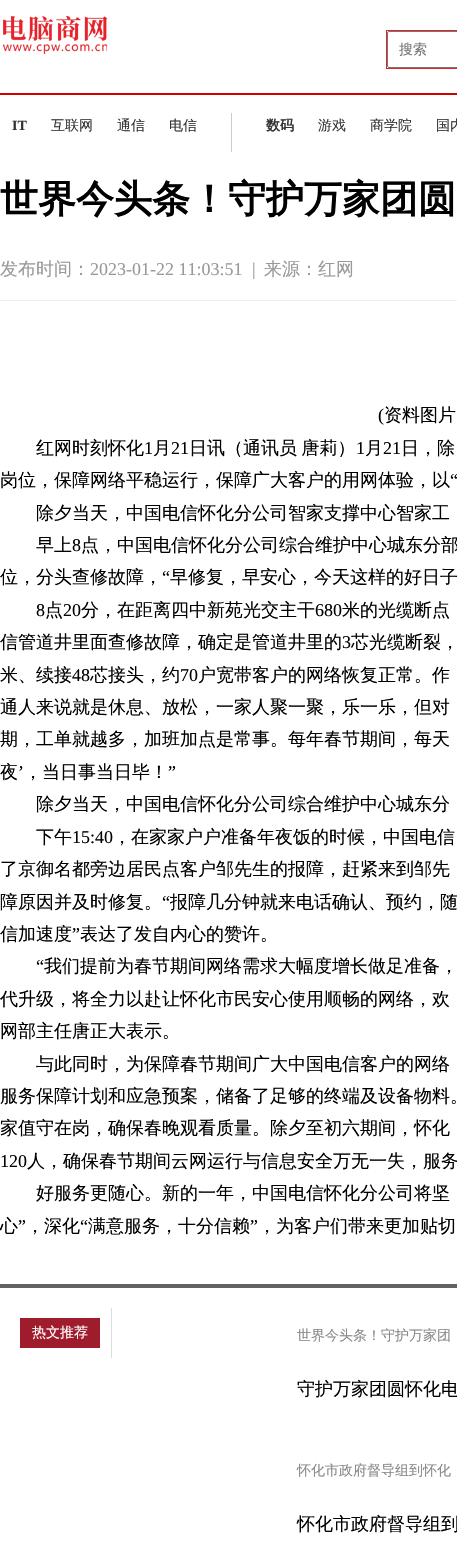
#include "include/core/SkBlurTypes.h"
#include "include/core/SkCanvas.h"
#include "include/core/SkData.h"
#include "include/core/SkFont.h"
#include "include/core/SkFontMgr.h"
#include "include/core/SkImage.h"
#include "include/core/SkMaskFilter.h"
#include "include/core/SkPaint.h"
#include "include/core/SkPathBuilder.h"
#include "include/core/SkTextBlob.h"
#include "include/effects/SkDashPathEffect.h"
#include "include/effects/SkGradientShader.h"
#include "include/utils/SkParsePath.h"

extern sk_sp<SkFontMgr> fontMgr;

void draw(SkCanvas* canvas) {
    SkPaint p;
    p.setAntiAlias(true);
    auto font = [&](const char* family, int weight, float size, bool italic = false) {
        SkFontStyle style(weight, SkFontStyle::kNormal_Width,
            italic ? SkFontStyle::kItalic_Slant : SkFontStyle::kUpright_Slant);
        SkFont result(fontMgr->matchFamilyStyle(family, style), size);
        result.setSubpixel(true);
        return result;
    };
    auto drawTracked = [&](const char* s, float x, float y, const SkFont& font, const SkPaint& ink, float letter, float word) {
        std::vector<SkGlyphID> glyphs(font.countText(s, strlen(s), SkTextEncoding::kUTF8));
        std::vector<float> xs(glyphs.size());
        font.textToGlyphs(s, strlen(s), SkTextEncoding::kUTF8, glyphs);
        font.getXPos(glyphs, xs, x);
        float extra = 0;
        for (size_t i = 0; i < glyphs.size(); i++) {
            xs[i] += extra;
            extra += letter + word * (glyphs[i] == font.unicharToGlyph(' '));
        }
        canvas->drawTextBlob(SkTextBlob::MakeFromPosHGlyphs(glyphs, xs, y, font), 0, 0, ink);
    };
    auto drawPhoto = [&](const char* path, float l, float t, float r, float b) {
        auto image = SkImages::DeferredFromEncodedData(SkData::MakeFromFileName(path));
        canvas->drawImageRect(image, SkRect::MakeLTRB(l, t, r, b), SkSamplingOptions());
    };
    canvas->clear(0xFFFFFFFF);
    drawPhoto("media/1.png", 3, 16, 107, 54);
    p.setStyle(SkPaint::kStroke_Style);
    p.setStrokeWidth(1);
    p.setColor(0xFFE72129);
    canvas->drawRect(SkRect::MakeLTRB(386.5f, 30.5f, 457.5f, 68.5f), p);
    p.setColor(0xFF767676);
    canvas->drawRoundRect(SkRect::MakeLTRB(387.5f, 31.5f, 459.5f, 67.5f), 1.5f, 1.5f, p);
    auto font1 = font("WenQuanYi Zen Hei", 500, 14);
    p.setStyle(SkPaint::kFill_Style);
    p.setColor(0xFF757575);
    canvas->drawString("搜索", 399, 54, font1, p);
    p.setColor(0xFFCF0101);
    canvas->drawRect(SkRect::MakeLTRB(0, 93, 457, 95), p);
    p.setColor(0xFFCCCCCC);
    canvas->drawRect(SkRect::MakeLTRB(231, 113, 232, 152), p);
    auto font2 = font("Liberation Serif", 700, 14);
    p.setColor(0xFF333333);
    canvas->drawString("IT", 12, 130, font2, p);
    {
        const struct { const char* s; float x, y; } items[] = {
            {"互联网", 51, 130},
            {"通信", 117, 130},
            {"电信", 169, 130},
        };
        for (auto [s, x, y] : items) {
            canvas->drawString(s, x, y, font1, p);
        }
    }
    auto font3 = font("WenQuanYi Zen Hei", 700, 14);
    canvas->drawString("数码", 266, 130, font3, p);
    {
        const struct { const char* s; float x, y; } items[] = {
            {"游戏", 318, 130},
            {"商学院", 370, 130},
            {"国内", 436, 130},
        };
        for (auto [s, x, y] : items) {
            canvas->drawString(s, x, y, font1, p);
        }
    }
    p.setColor(0xFFEEEEEE);
    canvas->drawRect(SkRect::MakeLTRB(0, 300, 457, 301), p);
    auto font4 = font("WenQuanYi Zen Hei", 700, 38);
    p.setColor(0xFF000000);
    canvas->drawString("世界今头条！守护万家团圆", 0, 212, font4, p);
    auto font5 = font("WenQuanYi Zen Hei", 500, 18);
    p.setColor(0xFF999999);
    canvas->drawString("发布时间：", 0, 275, font5, p);
    auto font6 = font("Liberation Serif", 400, 18);
    canvas->drawString("2023-01-22 11:03:51", 90, 275, font6, p);
    canvas->drawString("|", 252, 275, font6, p);
    canvas->drawString("来源：红网", 264, 275, font5, p);
    p.setColor(0xFF000000);
    canvas->drawString("(", 378, 421, font6, p);
    canvas->drawString("资料图片", 384, 421, font5, p);
    canvas->drawString("红网时刻怀化", 36, 454, font5, p);
    canvas->drawString("1", 144, 454, font6, p);
    canvas->drawString("月", 153, 454, font5, p);
    canvas->drawString("21", 171, 454, font6, p);
    canvas->drawString("日讯", 189, 454, font5, p);
    drawTracked("（通讯员 唐莉）", 225, 454, font5, p, 0, -1);
    canvas->drawString("1", 356, 454, font6, p);
    canvas->drawString("月", 365, 454, font5, p);
    canvas->drawString("21", 383, 454, font6, p);
    canvas->drawString("日，除", 401, 454, font5, p);
    canvas->drawString("岗位，保障网络平稳运行，保障广大客户的用网体验，以", 0, 486, font5, p);
    canvas->drawString("“", 450, 486, font6, p);
    canvas->drawString("除夕当天，中国电信怀化分公司智家支撑中心智家工", 36, 519, font5, p);
    canvas->drawString("早上", 36, 551, font5, p);
    canvas->drawString("8", 72, 551, font6, p);
    canvas->drawString("点，中国电信怀化分公司综合维护中心城东分部", 81, 551, font5, p);
    canvas->drawString("位，分头查修故障，", 0, 583, font5, p);
    canvas->drawString("“", 162, 583, font6, p);
    canvas->drawString("早修复，早安心，今天这样的好日子", 170, 583, font5, p);
    canvas->drawString("8", 36, 616, font6, p);
    canvas->drawString("点", 45, 616, font5, p);
    canvas->drawString("20", 63, 616, font6, p);
    canvas->drawString("分，在距离四中新苑光交主干", 81, 616, font5, p);
    canvas->drawString("680", 315, 616, font6, p);
    canvas->drawString("米的光缆断点", 342, 616, font5, p);
    canvas->drawString("信管道井里面查修故障，确定是管道井里的", 0, 648, font5, p);
    canvas->drawString("3", 342, 648, font6, p);
    canvas->drawString("芯光缆断裂，", 351, 648, font5, p);
    canvas->drawString("米、续接", 0, 681, font5, p);
    canvas->drawString("48", 72, 681, font6, p);
    canvas->drawString("芯接头，约", 90, 681, font5, p);
    canvas->drawString("70", 180, 681, font6, p);
    {
        const struct { const char* s; float x, y; } items[] = {
            {"户宽带客户的网络恢复正常。作", 198, 681},
            {"通人来说就是休息、放松，一家人聚一聚，乐一乐，但对", 0, 713},
            {"期，工单就越多，加班加点是常事。每年春节期间，每天", 0, 745},
            {"夜", 0, 778},
        };
        for (auto [s, x, y] : items) {
            canvas->drawString(s, x, y, font5, p);
        }
    }
    canvas->drawString("’", 18, 778, font6, p);
    canvas->drawString("，当日事当日毕！", 24, 778, font5, p);
    canvas->drawString("”", 168, 778, font6, p);
    canvas->drawString("除夕当天，中国电信怀化分公司综合维护中心城东分", 36, 810, font5, p);
    canvas->drawString("下午", 36, 843, font5, p);
    canvas->drawString("15:40", 72, 843, font6, p);
    {
        const struct { const char* s; float x, y; } items[] = {
            {"，在家家户户准备年夜饭的时候，中国电信", 113, 843},
            {"了京御名都旁边居民点客户邹先生的报障，赶紧来到邹先", 0, 875},
            {"障原因并及时修复。", 0, 908},
        };
        for (auto [s, x, y] : items) {
            canvas->drawString(s, x, y, font5, p);
        }
    }
    canvas->drawString("“", 162, 908, font6, p);
    canvas->drawString("报障几分钟就来电话确认、预约，随", 170, 908, font5, p);
    canvas->drawString("信加速度", 0, 940, font5, p);
    canvas->drawString("”", 72, 940, font6, p);
    canvas->drawString("表达了发自内心的赞许。", 80, 940, font5, p);
    canvas->drawString("“", 36, 972, font6, p);
    {
        const struct { const char* s; float x, y; } items[] = {
            {"我们提前为春节期间网络需求大幅度增长做足准备，", 44, 972},
            {"代升级，将全力以赴让怀化市民安心使用顺畅的网络，欢", 0, 1005},
            {"网部主任唐正大表示。", 0, 1037},
            {"与此同时，为保障春节期间广大中国电信客户的网络", 36, 1070},
            {"服务保障计划和应急预案，储备了足够的终端及设备物料。", 0, 1102},
            {"家值守在岗，确保春晚观看质量。除夕至初六期间，怀化", 0, 1134},
        };
        for (auto [s, x, y] : items) {
            canvas->drawString(s, x, y, font5, p);
        }
    }
    canvas->drawString("120", 0, 1167, font6, p);
    {
        const struct { const char* s; float x, y; } items[] = {
            {"人，确保春节期间云网运行与信息安全万无一失，服务", 27, 1167},
            {"好服务更随心。新的一年，中国电信怀化分公司将坚", 36, 1199},
            {"心", 0, 1232},
        };
        for (auto [s, x, y] : items) {
            canvas->drawString(s, x, y, font5, p);
        }
    }
    canvas->drawString("”", 18, 1232, font6, p);
    canvas->drawString("，深化", 26, 1232, font5, p);
    canvas->drawString("“", 80, 1232, font6, p);
    canvas->drawString("满意服务，十分信赖", 88, 1232, font5, p);
    canvas->drawString("”", 250, 1232, font6, p);
    canvas->drawString("，为客户们带来更加贴切", 258, 1232, font5, p);
    {
        const struct { float l, t, r, b; SkColor color; } items[] = {
            {0, 1284, 457, 1288, 0xFF626262},
            {111, 1308, 112, 1358, 0xFFDDDDDD},
            {20, 1318, 100, 1348, 0xFF9F1C2C},
        };
        for (auto [l, t, r, b, color] : items) {
            p.setColor(color);
            canvas->drawRect(SkRect::MakeLTRB(l, t, r, b), p);
        }
    }
    p.setColor(0xFFFFFFFF);
    canvas->drawString("热文推荐", 32, 1337, font1, p);
    p.setColor(0xFF888888);
    canvas->drawString("世界今头条！守护万家团", 297, 1340, font1, p);
    p.setColor(0xFF000000);
    canvas->drawString("守护万家团圆怀化电", 297, 1395, font5, p);
    p.setColor(0xFF888888);
    drawTracked("怀化市政府督导组到怀化", 297, 1475, font1, p, 0, -1);
    p.setColor(0xFF000000);
    canvas->drawString("怀化市政府督导组到", 297, 1530, font5, p);
}
